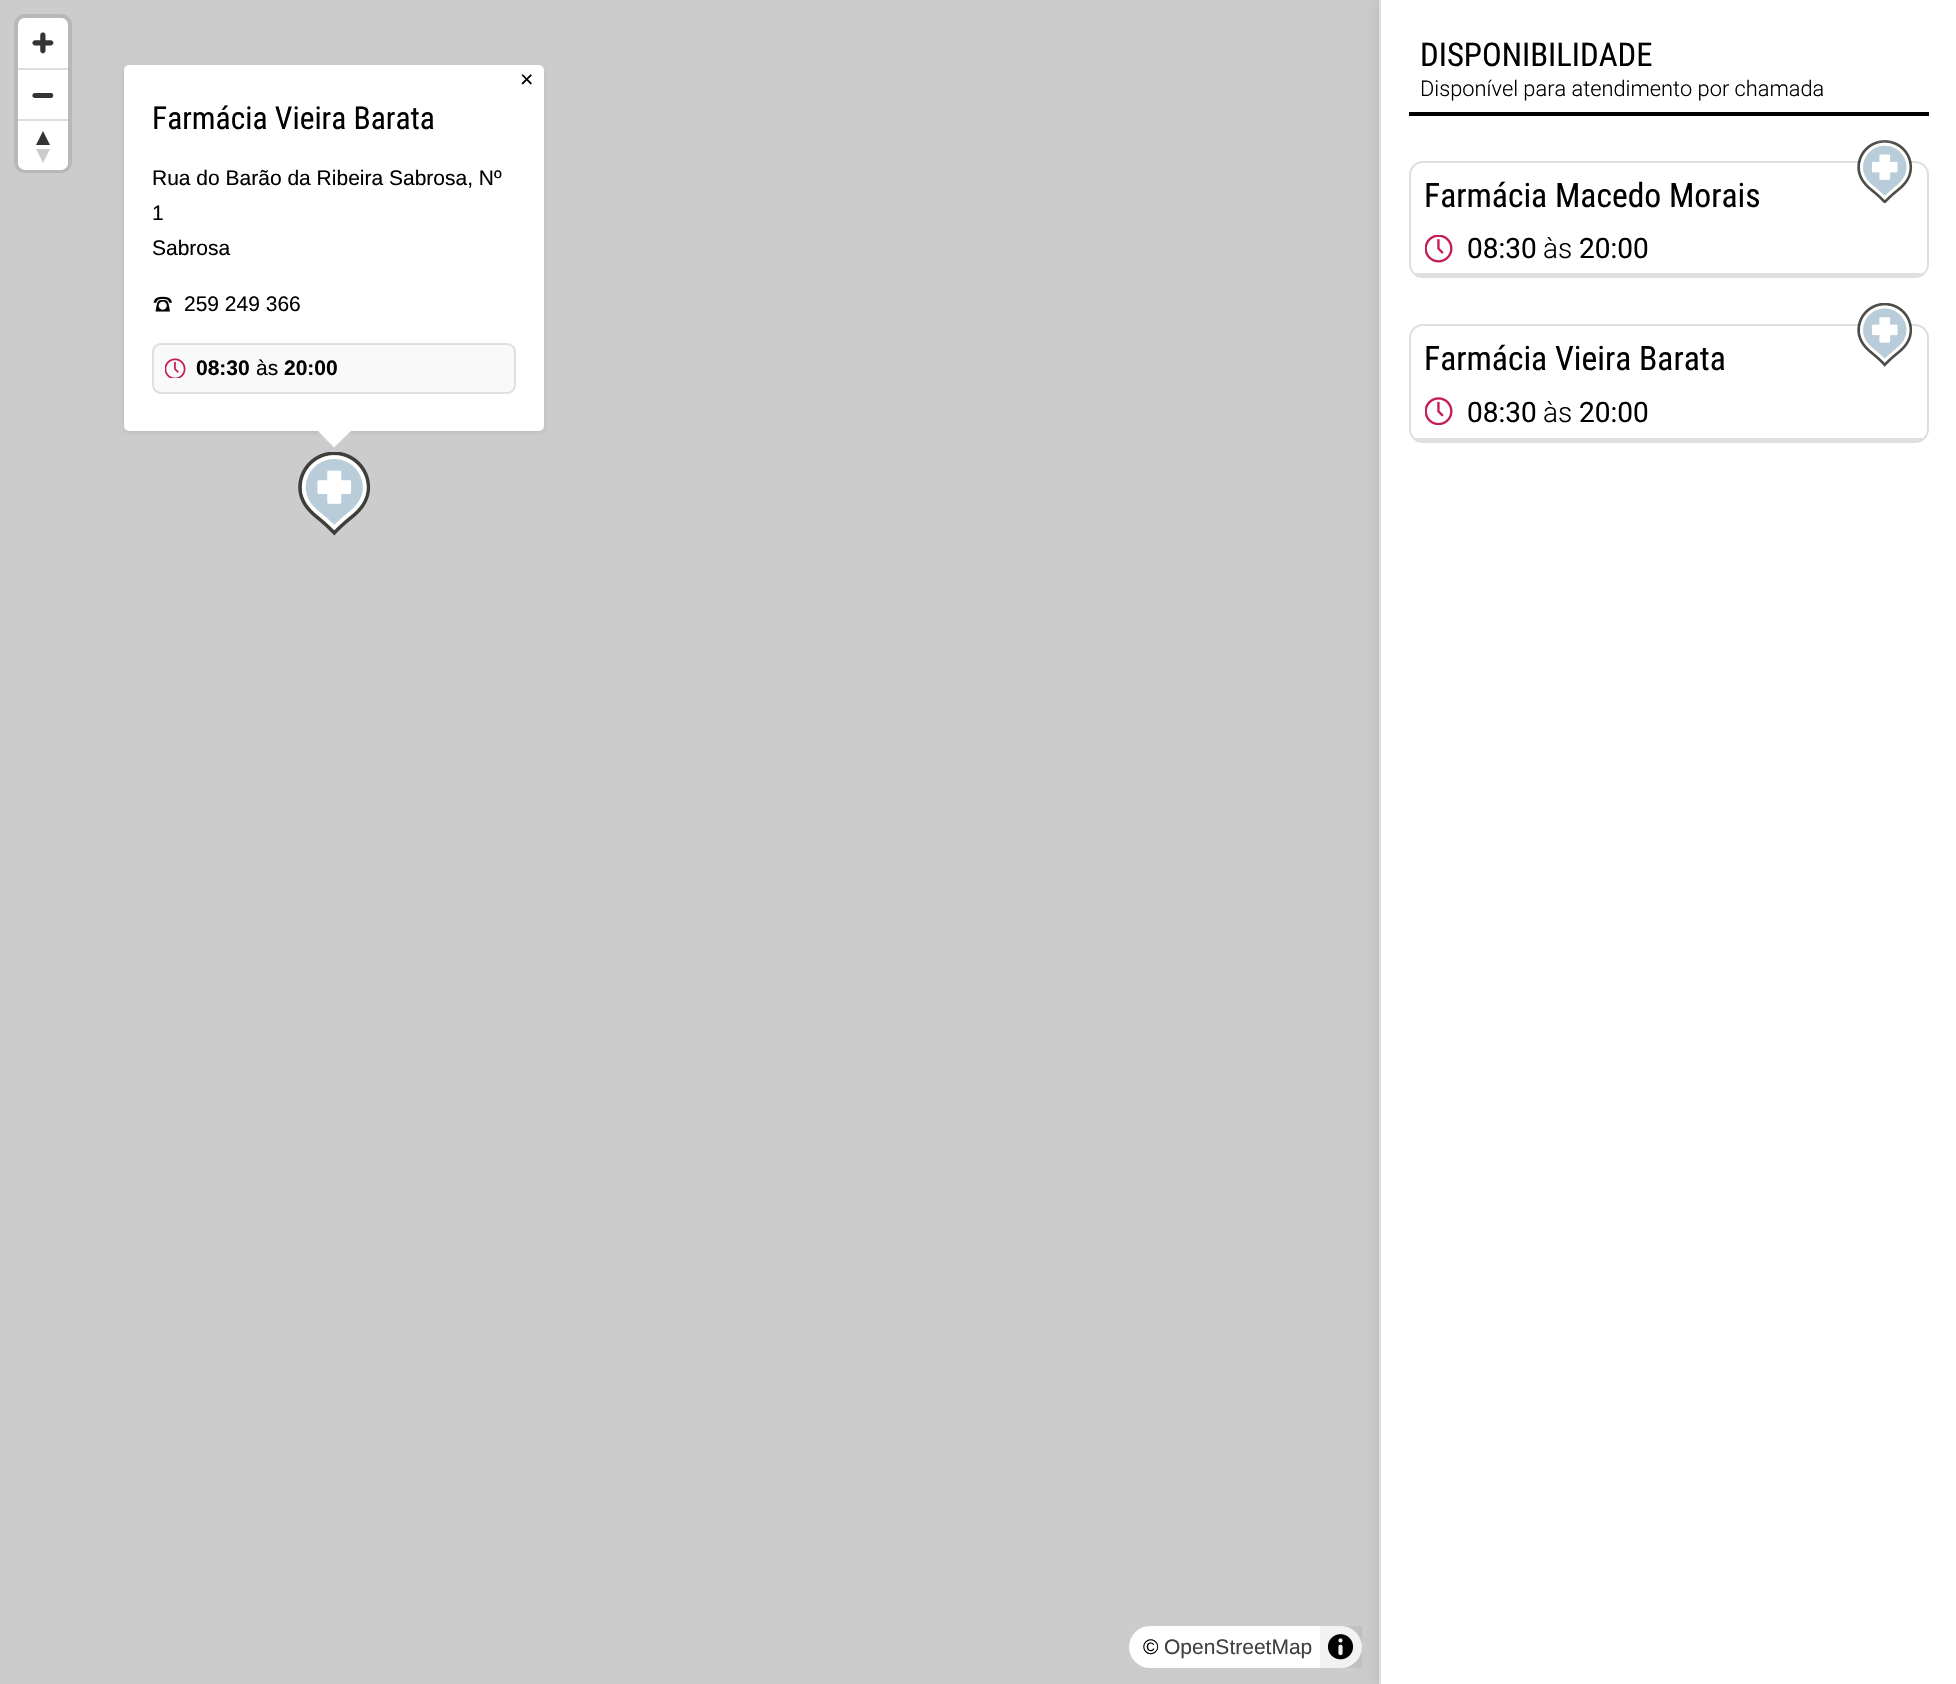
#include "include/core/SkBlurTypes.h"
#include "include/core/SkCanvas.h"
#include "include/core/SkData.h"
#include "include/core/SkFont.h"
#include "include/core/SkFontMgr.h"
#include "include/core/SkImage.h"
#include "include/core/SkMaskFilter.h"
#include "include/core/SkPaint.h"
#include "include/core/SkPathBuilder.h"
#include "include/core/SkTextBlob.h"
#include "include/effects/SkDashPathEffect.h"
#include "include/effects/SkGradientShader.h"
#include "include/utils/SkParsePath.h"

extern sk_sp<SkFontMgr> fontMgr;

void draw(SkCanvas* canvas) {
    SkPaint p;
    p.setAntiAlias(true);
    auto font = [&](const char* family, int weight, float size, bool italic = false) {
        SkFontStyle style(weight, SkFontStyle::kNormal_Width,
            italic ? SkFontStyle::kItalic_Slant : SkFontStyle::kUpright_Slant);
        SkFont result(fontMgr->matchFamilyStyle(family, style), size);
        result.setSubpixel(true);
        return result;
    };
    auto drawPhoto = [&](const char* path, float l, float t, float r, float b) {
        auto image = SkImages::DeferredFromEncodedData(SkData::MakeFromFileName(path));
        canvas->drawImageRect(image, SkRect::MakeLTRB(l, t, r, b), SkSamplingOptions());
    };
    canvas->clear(0xFFCCCCCC);
    p.setColor(0x1A000000);
    p.setMaskFilter(SkMaskFilter::MakeBlur(kNormal_SkBlurStyle, 2));
    canvas->drawRoundRect(SkRect::MakeLTRB(124, 67, 544, 432), 5, 5, p);
    p.setMaskFilter(nullptr);
    p.setColor(0xFFFFFFFF);
    canvas->drawRoundRect(SkRect::MakeLTRB(124, 65, 544, 431), 5, 5, p);
    auto font1 = font("Liberation Sans", 400, 23);
    p.setColor(0xFF000000);
    canvas->drawString("×", 520, 87, font1, p);
    auto font2 = font("Roboto Condensed", 400, 31.5f);
    canvas->drawString("Farmácia Vieira Barata", 152, 129, font2, p);
    auto font3 = font("Liberation Sans", 400, 21);
    {
        const struct { const char* s; float x, y; } items[] = {
            {"Rua do Barão da Ribeira Sabrosa, Nº", 152, 185},
            {"1", 152, 220},
            {"Sabrosa", 152, 255},
        };
        for (auto [s, x, y] : items) {
            canvas->drawString(s, x, y, font3, p);
        }
    }
    drawPhoto("media/1.png", 153, 296, 172, 312);
    canvas->drawString("259 249 366", 184, 311, font3, p);
    p.setColor(0xFFF9F9F9);
    canvas->drawRoundRect(SkRect::MakeLTRB(152, 343, 516, 394), 9, 9, p);
    drawPhoto("media/2.png", 165, 358, 186, 378);
    p.setStyle(SkPaint::kStroke_Style);
    p.setStrokeWidth(2);
    p.setColor(0xFFDFDFDF);
    canvas->drawRoundRect(SkRect::MakeLTRB(153, 344, 515, 393), 8, 8, p);
    auto font4 = font("Liberation Sans", 700, 21);
    p.setStyle(SkPaint::kFill_Style);
    p.setColor(0xFF000000);
    canvas->drawString("08:30", 196, 375, font4, p);
    canvas->drawString("às", 256, 375, font3, p);
    canvas->drawString("20:00", 284, 375, font4, p);
    p.setColor(0xFFFFFFFF);
    canvas->drawPath(SkPathBuilder().moveTo(317, 430).lineTo(352, 430).lineTo(334, 447.5f).close().detach(), p);
    drawPhoto("media/3.png", 298, 452, 371, 536);
    p.setStyle(SkPaint::kStroke_Style);
    p.setStrokeWidth(4);
    p.setColor(0xFFB8B8B8);
    canvas->drawRoundRect(SkRect::MakeLTRB(16, 16, 70, 171), 9, 9, p);
    p.setStyle(SkPaint::kFill_Style);
    p.setColor(0xFFFFFFFF);
    canvas->drawRoundRect(SkRect::MakeLTRB(18, 18, 68, 170), 7, 7, p);
    drawPhoto("media/4.png", 32, 32, 54, 54);
    p.setColor(0xFFDDDDDD);
    canvas->drawRect(SkRect::MakeLTRB(18, 68, 68, 70), p);
    p.setColor(0xFF333333);
    canvas->drawPath(SkPathBuilder().moveTo(35, 93).cubicTo(31.5f, 93, 31.5f, 98, 35, 98).lineTo(51, 98).cubicTo(54, 97.5f, 54, 93, 51, 93).close().detach(), p);
    p.setColor(0xFFDDDDDD);
    canvas->drawRect(SkRect::MakeLTRB(18, 119, 68, 121), p);
    p.setColor(0xFF333333);
    canvas->drawPath(SkPathBuilder().moveTo(36, 145).lineTo(43, 131).lineTo(50, 145).close().detach(), p);
    p.setColor(0xFFCCCCCC);
    canvas->drawPath(SkPathBuilder().moveTo(36, 149).lineTo(43, 163).lineTo(50, 149).close().detach(), p);
    p.setColor(0x1A000000);
    p.setMaskFilter(SkMaskFilter::MakeBlur(kNormal_SkBlurStyle, 7));
    canvas->drawRect(SkRect::MakeLTRB(1379, 0, 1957, 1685), p);
    p.setMaskFilter(nullptr);
    p.setColor(0xFFFFFFFF);
    canvas->drawRoundRect(SkRect::MakeLTRB(1129, 1626, 1362, 1668), 21, 21, p);
    p.setColor(0xFF000000);
    canvas->drawString("©", 1143, 1654, font3, p);
    p.setColor(0xFF404040);
    canvas->drawString("OpenStreetMap", 1164, 1654, font3, p);
    p.setColor(0x0D000000);
    canvas->drawRect(SkRect::MakeLTRB(1320, 1626, 1362, 1668), p);
    drawPhoto("media/5.png", 1327, 1634, 1354, 1660);
    {
        const struct { float l, t, r, b; SkColor color; } items[] = {
            {1381, 0, 1956, 1684, 0xFFFFFFFF},
            {1379, 0, 1381, 1684, 0xFFDFDFDF},
            {1409, 112, 1929, 116, 0xFF000000},
        };
        for (auto [l, t, r, b, color] : items) {
            p.setColor(color);
            canvas->drawRect(SkRect::MakeLTRB(l, t, r, b), p);
        }
    }
    auto font5 = font("Roboto Condensed", 400, 32.75f);
    canvas->drawString("DISPONIBILIDADE", 1420, 66, font5, p);
    auto font6 = font("Roboto", 300, 21.8f);
    canvas->drawString("Disponível para atendimento por chamada", 1420, 96, font6, p);
    p.setStyle(SkPaint::kStroke_Style);
    p.setStrokeWidth(2);
    p.setColor(0xFFDFDFDF);
    canvas->drawRoundRect(SkRect::MakeLTRB(1410, 162, 1928, 277), 13, 13, p);
    drawPhoto("media/6.png", 1857, 140, 1913, 203);
    p.setStyle(SkPaint::kFill_Style);
    {
        const SkColor colors[] = {0xFFFFFFFF, 0x00FFFFFF};
        const float stops[] = {0, 1};
        const SkPoint ends[] = {{1669, 115}, {1669, 144}};
        p.setShader(SkGradientShader::MakeLinear(ends, colors, stops, 2, SkTileMode::kClamp));
        p.setAlpha(255);
    }
    canvas->drawRect(SkRect::MakeLTRB(1873, 140, 1897, 143), p);
    p.setShader(nullptr);
    p.setColor(0xFFDFDFDF);
    canvas->drawRect(SkRect::MakeLTRB(1416, 273, 1922, 277), p);
    auto font7 = font("Roboto Condensed", 400, 33.6f);
    p.setColor(0xFF000000);
    canvas->drawString("Farmácia Macedo Morais", 1424, 207, font7, p);
    drawPhoto("media/7.png", 1425, 235, 1453, 263);
    auto font8 = font("Roboto", 400, 28);
    canvas->drawString("08:30", 1467, 258, font8, p);
    auto font9 = font("Roboto", 300, 28);
    canvas->drawString("às", 1543, 258, font9, p);
    canvas->drawString("20:00", 1579, 258, font8, p);
    p.setStyle(SkPaint::kStroke_Style);
    p.setColor(0xFFDFDFDF);
    canvas->drawRoundRect(SkRect::MakeLTRB(1410, 325, 1928, 442), 13, 13, p);
    p.setStyle(SkPaint::kFill_Style);
    canvas->drawRect(SkRect::MakeLTRB(1416, 438, 1922, 442), p);
    p.setColor(0xFF000000);
    canvas->drawString("Farmácia Vieira Barata", 1424, 370, font7, p);
    drawPhoto("media/8.png", 1857, 303, 1913, 367);
    drawPhoto("media/9.png", 1425, 397, 1453, 425);
    canvas->drawString("08:30", 1467, 422, font8, p);
    canvas->drawString("às", 1543, 422, font9, p);
    canvas->drawString("20:00", 1579, 422, font8, p);
}
